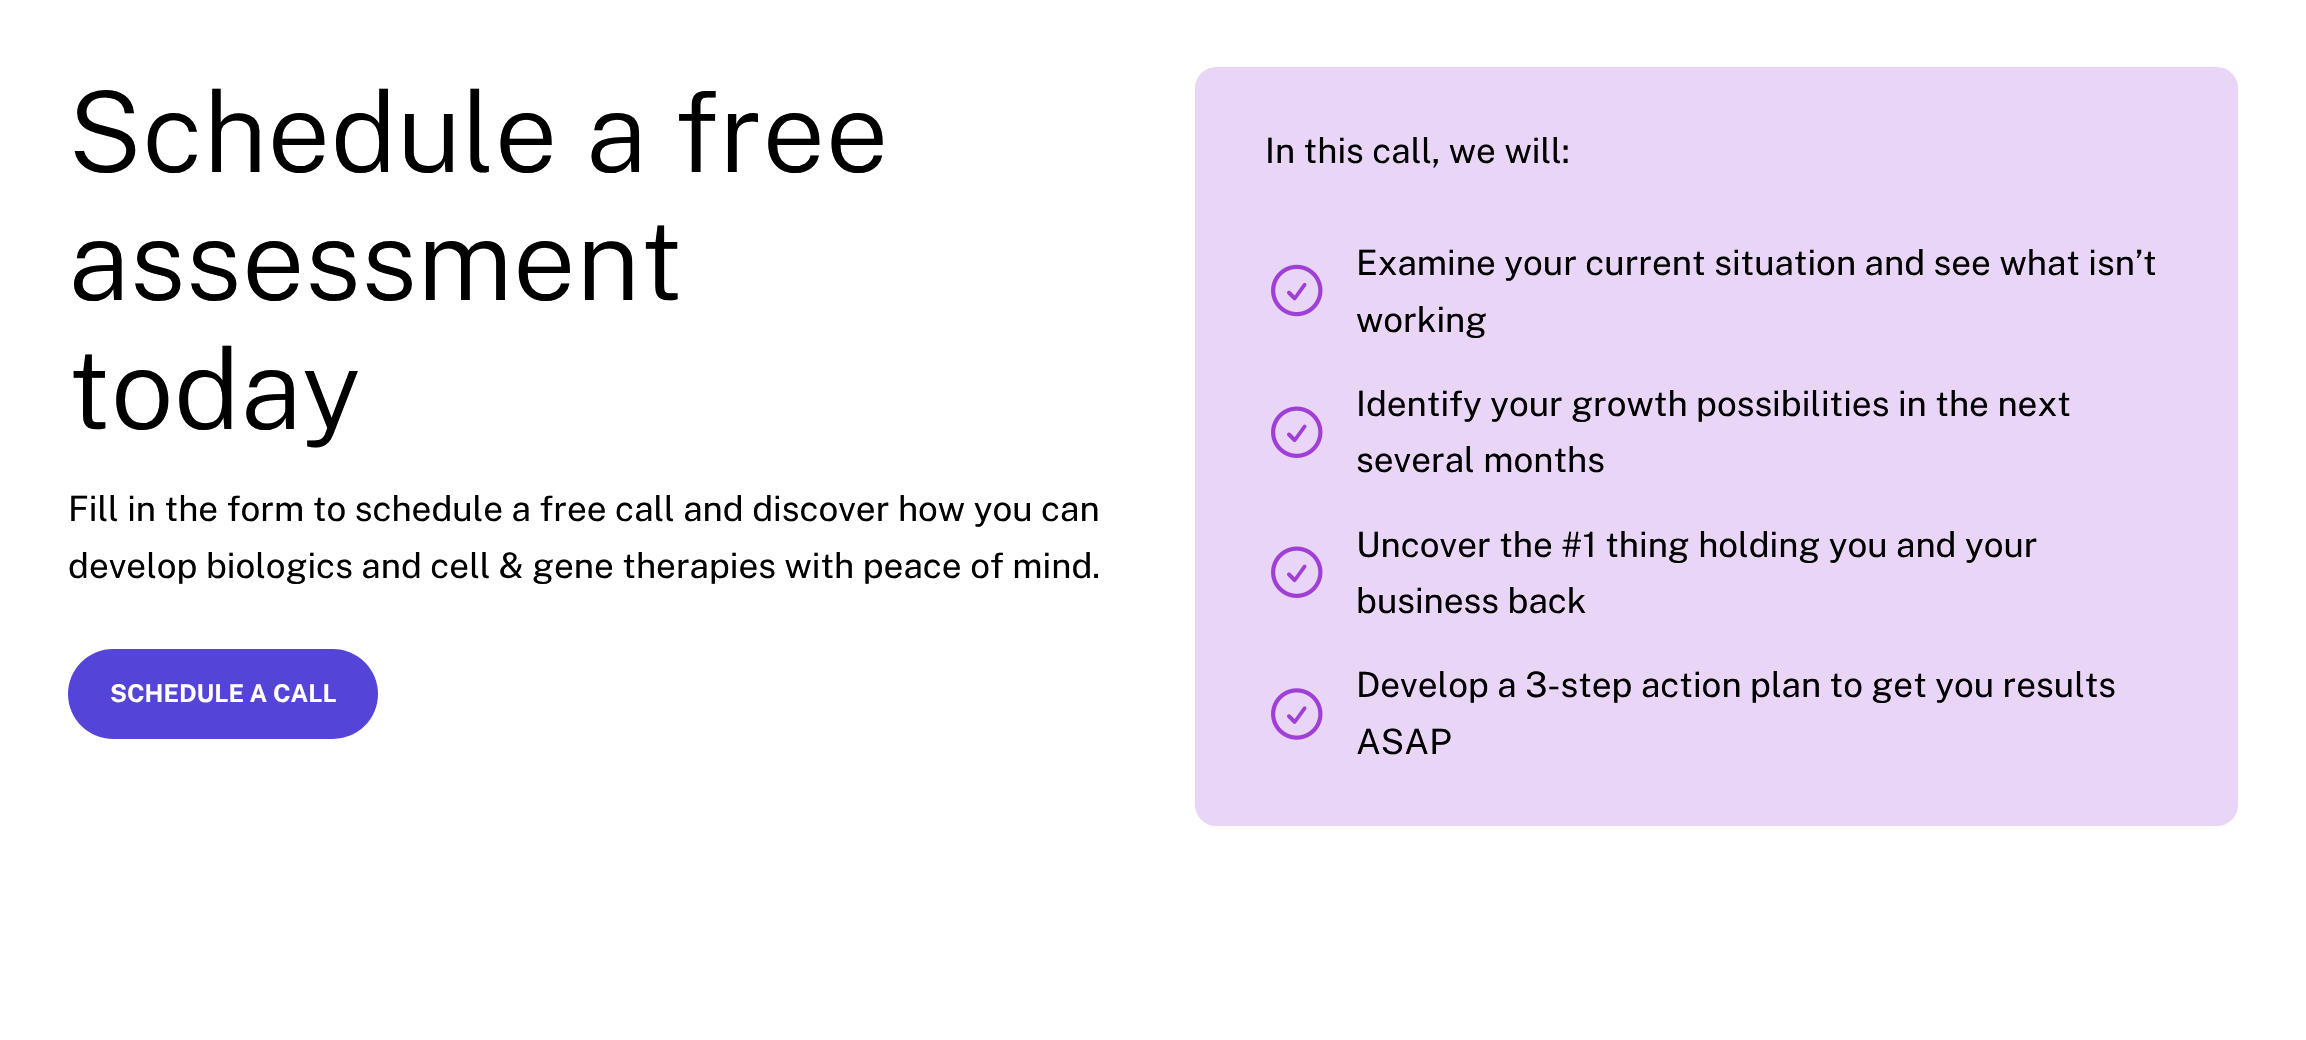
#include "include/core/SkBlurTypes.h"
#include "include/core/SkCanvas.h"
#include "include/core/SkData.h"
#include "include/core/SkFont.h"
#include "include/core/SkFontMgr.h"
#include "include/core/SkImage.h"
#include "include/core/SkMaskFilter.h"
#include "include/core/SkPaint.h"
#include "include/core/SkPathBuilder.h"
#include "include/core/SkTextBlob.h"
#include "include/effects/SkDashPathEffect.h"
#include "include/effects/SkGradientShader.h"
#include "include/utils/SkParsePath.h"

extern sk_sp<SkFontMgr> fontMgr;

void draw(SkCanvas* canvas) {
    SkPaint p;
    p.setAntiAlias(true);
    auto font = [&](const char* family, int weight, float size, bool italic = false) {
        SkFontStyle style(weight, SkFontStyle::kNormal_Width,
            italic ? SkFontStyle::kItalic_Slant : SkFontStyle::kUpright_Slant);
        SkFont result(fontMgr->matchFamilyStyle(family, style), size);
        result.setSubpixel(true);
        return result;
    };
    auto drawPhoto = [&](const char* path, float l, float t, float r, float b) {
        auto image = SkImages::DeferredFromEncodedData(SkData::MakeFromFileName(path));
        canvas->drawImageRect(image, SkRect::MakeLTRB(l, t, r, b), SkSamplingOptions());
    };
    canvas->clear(0xFFFFFFFF);
    auto font1 = font("Public Sans", 300, 112);
    p.setColor(0xFF000000);
    {
        const struct { const char* s; float x, y; } items[] = {
            {"Schedule a free", 68, 172},
            {"assessment", 68, 300},
            {"today", 68, 429},
        };
        for (auto [s, x, y] : items) {
            canvas->drawString(s, x, y, font1, p);
        }
    }
    auto font2 = font("Public Sans", 400, 35);
    canvas->drawString("Fill in the form to schedule a free call and discover how you can", 68, 521, font2, p);
    canvas->drawString("develop biologics and cell & gene therapies with peace of mind.", 68, 578, font2, p);
    p.setColor(0xFF5544D8);
    canvas->drawRoundRect(SkRect::MakeLTRB(68, 649, 378, 739), 45, 45, p);
    auto font3 = font("Public Sans", 700, 24.5f);
    p.setColor(0xFFFFFFFF);
    canvas->drawString("SCHEDULE A CALL", 110, 702, font3, p);
    p.setColor(0xFFE9D5F6);
    canvas->drawRoundRect(SkRect::MakeLTRB(1195, 67, 2238, 826), 21, 21, p);
    p.setColor(0xFF000000);
    canvas->drawString("In this call, we will:", 1265, 163, font2, p);
    drawPhoto("media/1.png", 1271, 264, 1323, 317);
    canvas->drawString("Examine your current situation and see what isn’t", 1356, 275, font2, p);
    canvas->drawString("working", 1356, 332, font2, p);
    drawPhoto("media/2.png", 1271, 406, 1323, 458);
    canvas->drawString("Identify your growth possibilities in the next", 1356, 416, font2, p);
    canvas->drawString("several months", 1356, 472, font2, p);
    drawPhoto("media/2.png", 1271, 546, 1323, 598);
    canvas->drawString("Uncover the #1 thing holding you and your", 1356, 557, font2, p);
    canvas->drawString("business back", 1356, 613, font2, p);
    drawPhoto("media/3.png", 1271, 688, 1323, 740);
    canvas->drawString("Develop a 3-step action plan to get you results", 1356, 697, font2, p);
    canvas->drawString("ASAP", 1356, 754, font2, p);
}
